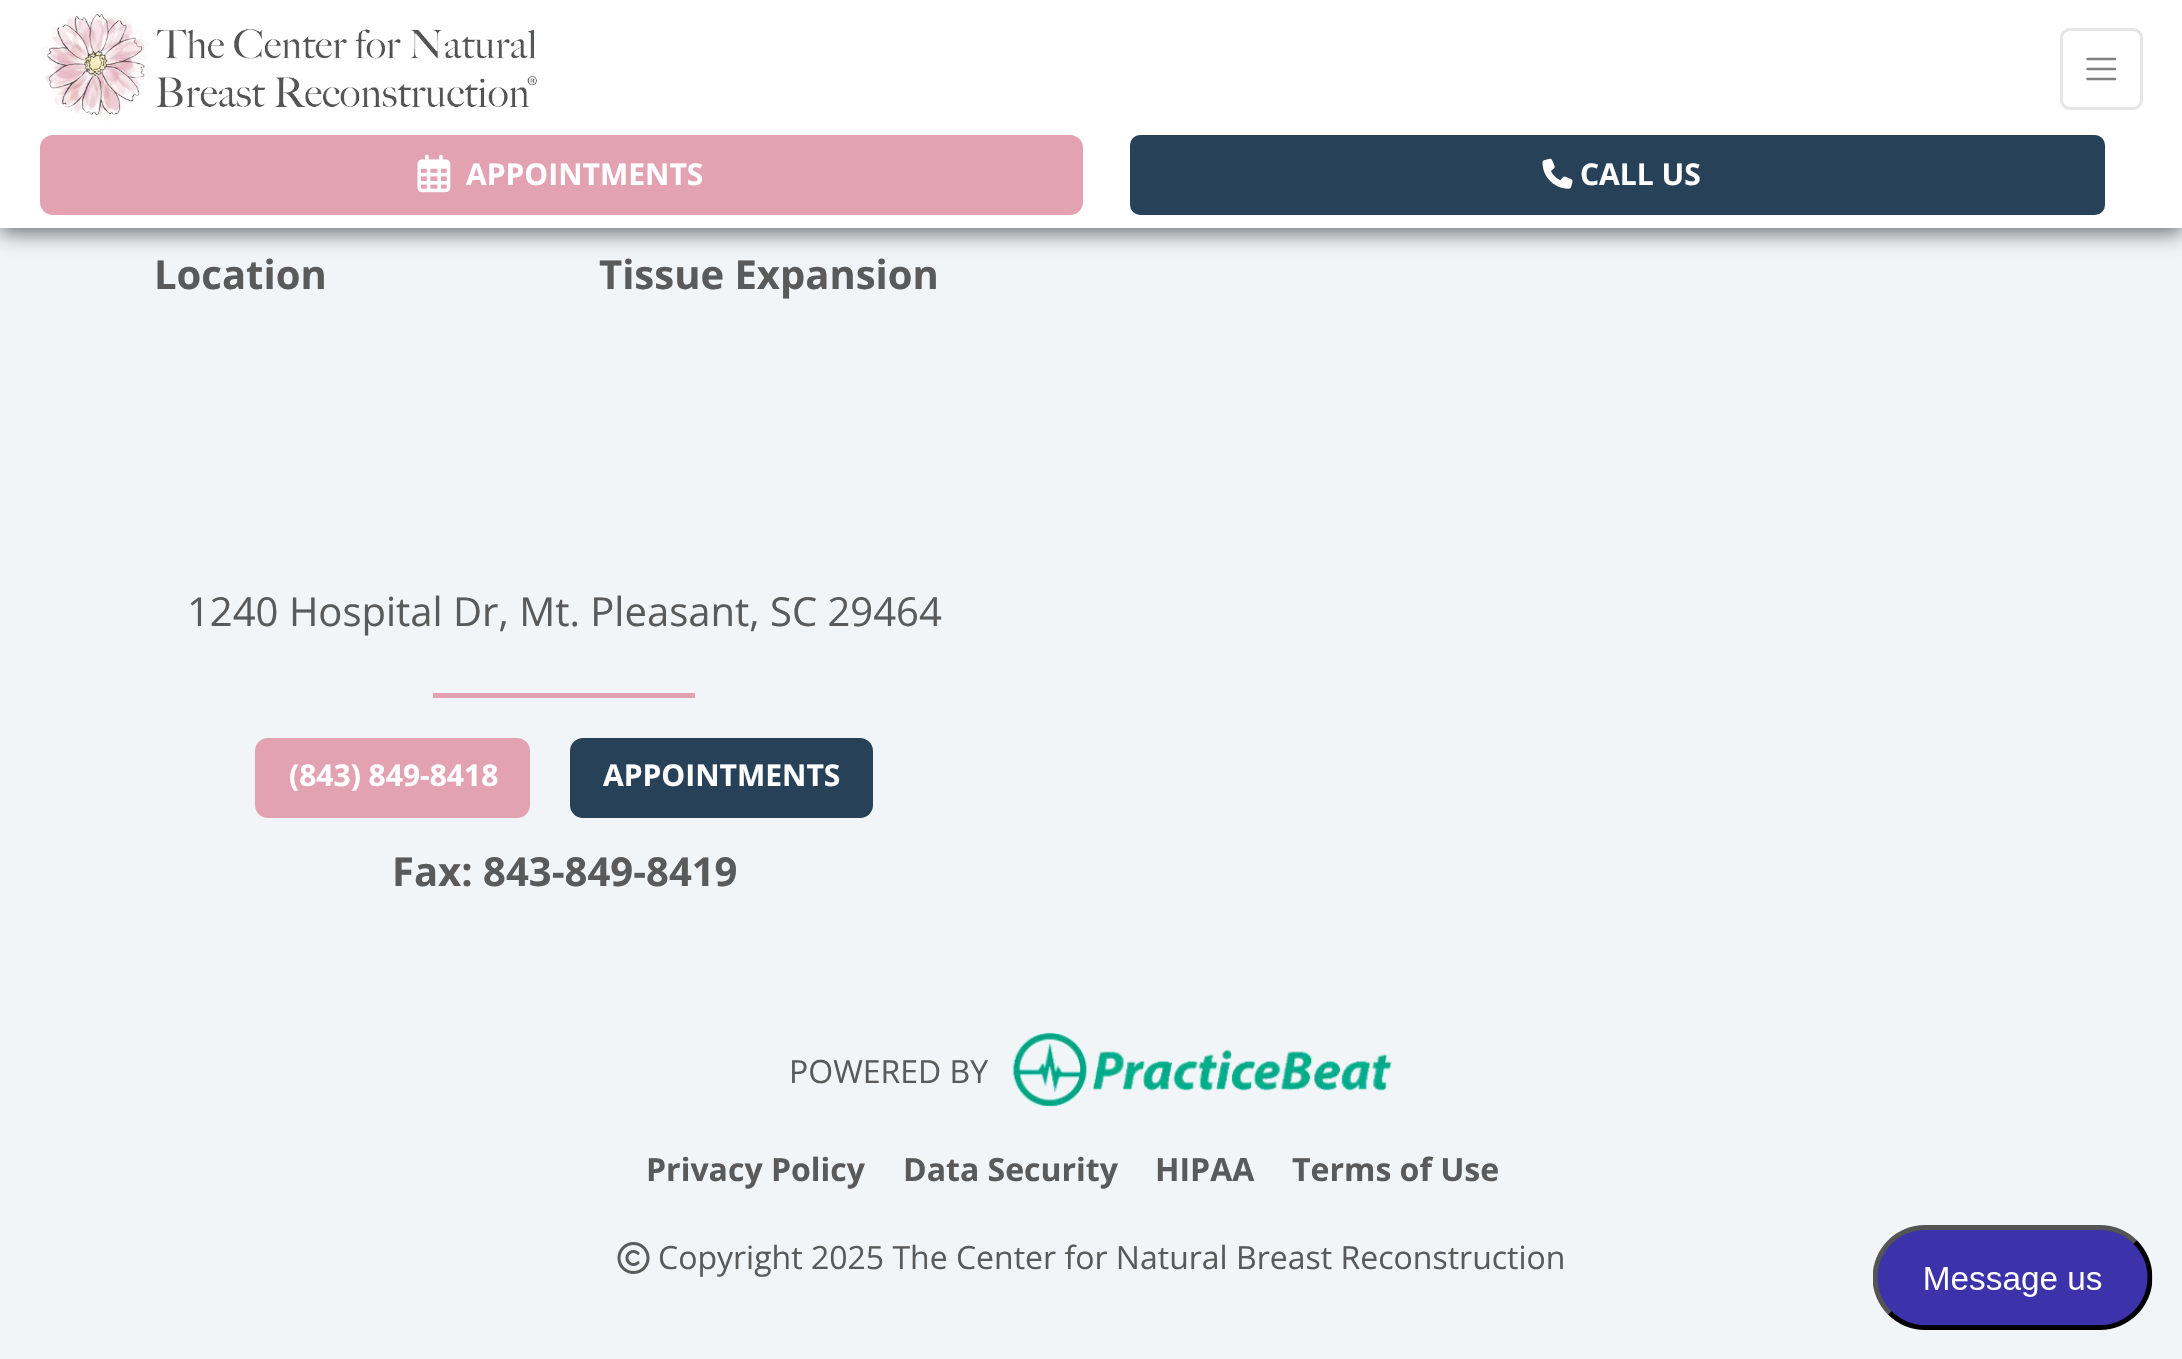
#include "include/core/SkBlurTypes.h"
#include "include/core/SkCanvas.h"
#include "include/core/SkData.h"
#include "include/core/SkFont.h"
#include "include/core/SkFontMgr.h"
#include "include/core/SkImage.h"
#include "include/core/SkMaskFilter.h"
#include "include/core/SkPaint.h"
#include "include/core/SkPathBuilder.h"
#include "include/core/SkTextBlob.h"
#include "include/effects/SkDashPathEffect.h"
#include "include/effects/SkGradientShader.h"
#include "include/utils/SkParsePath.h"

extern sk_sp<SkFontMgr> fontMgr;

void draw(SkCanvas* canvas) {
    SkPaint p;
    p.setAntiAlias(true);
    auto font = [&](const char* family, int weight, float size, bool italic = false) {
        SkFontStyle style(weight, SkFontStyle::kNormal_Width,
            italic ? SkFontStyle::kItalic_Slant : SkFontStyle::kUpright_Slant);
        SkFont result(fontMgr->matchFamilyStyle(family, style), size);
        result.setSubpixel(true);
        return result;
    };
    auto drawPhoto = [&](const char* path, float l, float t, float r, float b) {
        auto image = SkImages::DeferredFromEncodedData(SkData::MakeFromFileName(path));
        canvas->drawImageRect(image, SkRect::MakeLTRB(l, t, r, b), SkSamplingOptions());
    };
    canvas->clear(0xFFF2F5F8);
    p.setColor(0x8F000000);
    p.setMaskFilter(SkMaskFilter::MakeBlur(kNormal_SkBlurStyle, 10));
    canvas->drawRect(SkRect::MakeLTRB(0, 5, 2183, 233), p);
    p.setMaskFilter(nullptr);
    p.setColor(0xFFFFFFFF);
    canvas->drawRect(SkRect::MakeLTRB(0, 0, 2182, 228), p);
    drawPhoto("media/1.png", 41, 13, 537, 121);
    p.setStyle(SkPaint::kStroke_Style);
    p.setStrokeWidth(3);
    p.setColor(0xFFE6E6E6);
    canvas->drawRoundRect(SkRect::MakeLTRB(2061.5f, 29.5f, 2141.5f, 108.5f), 8.5f, 8.5f, p);
    p.setStrokeWidth(2.5f);
    p.setStrokeCap(SkPaint::kRound_Cap);
    p.setColor(0xFF808080);
    canvas->drawPath(SkPathBuilder().moveTo(2087.5f, 59).lineTo(2115, 59).moveTo(2087.5f, 69).lineTo(2115, 69).moveTo(2087.5f, 79).lineTo(2115, 79).detach(), p);
    p.setStyle(SkPaint::kFill_Style);
    p.setColor(0xFFE2A2B2);
    canvas->drawRoundRect(SkRect::MakeLTRB(41.5f, 136.5f, 1081.5f, 213.5f), 11.5f, 11.5f, p);
    p.setStyle(SkPaint::kStroke_Style);
    p.setStrokeWidth(3);
    p.setStrokeCap(SkPaint::kButt_Cap);
    canvas->drawRoundRect(SkRect::MakeLTRB(41.5f, 136.5f, 1081.5f, 213.5f), 11.5f, 11.5f, p);
    drawPhoto("media/2.png", 417, 154, 451, 193);
    auto font1 = font("Open Sans", 700, 30);
    p.setStyle(SkPaint::kFill_Style);
    p.setColor(0xFFFFFFFF);
    canvas->drawString("APPOINTMENTS", 466, 185, font1, p);
    p.setColor(0xFF274158);
    canvas->drawRoundRect(SkRect::MakeLTRB(1130, 135, 2105, 215), 10, 10, p);
    drawPhoto("media/3.png", 1542, 158, 1573, 189);
    p.setColor(0xFFFFFFFF);
    canvas->drawString("CALL US", 1580, 185, font1, p);
    auto font2 = font("Open Sans", 700, 40);
    p.setColor(0xFF5A5A5A);
    canvas->drawString("Location", 154, 289, font2, p);
    canvas->drawString("Tissue Expansion", 599, 289, font2, p);
    auto font3 = font("Open Sans", 400, 40);
    canvas->drawString("1240 Hospital Dr, Mt. Pleasant, SC 29464", 187, 626, font3, p);
    p.setColor(0xFFE2A2B2);
    canvas->drawRect(SkRect::MakeLTRB(433, 693, 695, 698), p);
    canvas->drawRoundRect(SkRect::MakeLTRB(256.5f, 739.5f, 528.5f, 816.5f), 11.5f, 11.5f, p);
    p.setStyle(SkPaint::kStroke_Style);
    canvas->drawRoundRect(SkRect::MakeLTRB(256.5f, 739.5f, 528.5f, 816.5f), 11.5f, 11.5f, p);
    p.setStyle(SkPaint::kFill_Style);
    p.setColor(0xFFFFFFFF);
    canvas->drawString("(843) 849-8418", 289, 786, font1, p);
    p.setColor(0xFF274158);
    canvas->drawRoundRect(SkRect::MakeLTRB(571.5f, 739.5f, 871.5f, 816.5f), 11.5f, 11.5f, p);
    p.setStyle(SkPaint::kStroke_Style);
    canvas->drawRoundRect(SkRect::MakeLTRB(571.5f, 739.5f, 871.5f, 816.5f), 11.5f, 11.5f, p);
    p.setStyle(SkPaint::kFill_Style);
    p.setColor(0xFFFFFFFF);
    canvas->drawString("APPOINTMENTS", 603, 786, font1, p);
    p.setColor(0xFF5A5A5A);
    canvas->drawString("Fax: 843-849-8419", 392, 886, font2, p);
    auto font4 = font("Open Sans", 400, 32);
    canvas->drawString("POWERED BY", 789, 1083, font4, p);
    drawPhoto("media/4.png", 1012, 1032, 1392, 1107);
    auto font5 = font("Open Sans", 700, 32);
    {
        const struct { const char* s; float x, y; } items[] = {
            {"Privacy Policy", 646, 1181},
            {"Data Security", 903, 1181},
            {"HIPAA", 1155, 1181},
            {"Terms of Use", 1292, 1181},
        };
        for (auto [s, x, y] : items) {
            canvas->drawString(s, x, y, font5, p);
        }
    }
    drawPhoto("media/5.png", 617, 1242, 650, 1274);
    canvas->drawString("Copyright 2025 The Center for Natural Breast Reconstruction", 658, 1269, font4, p);
    drawPhoto("media/6.png", 1873, 1225, 2153, 1330);
}
